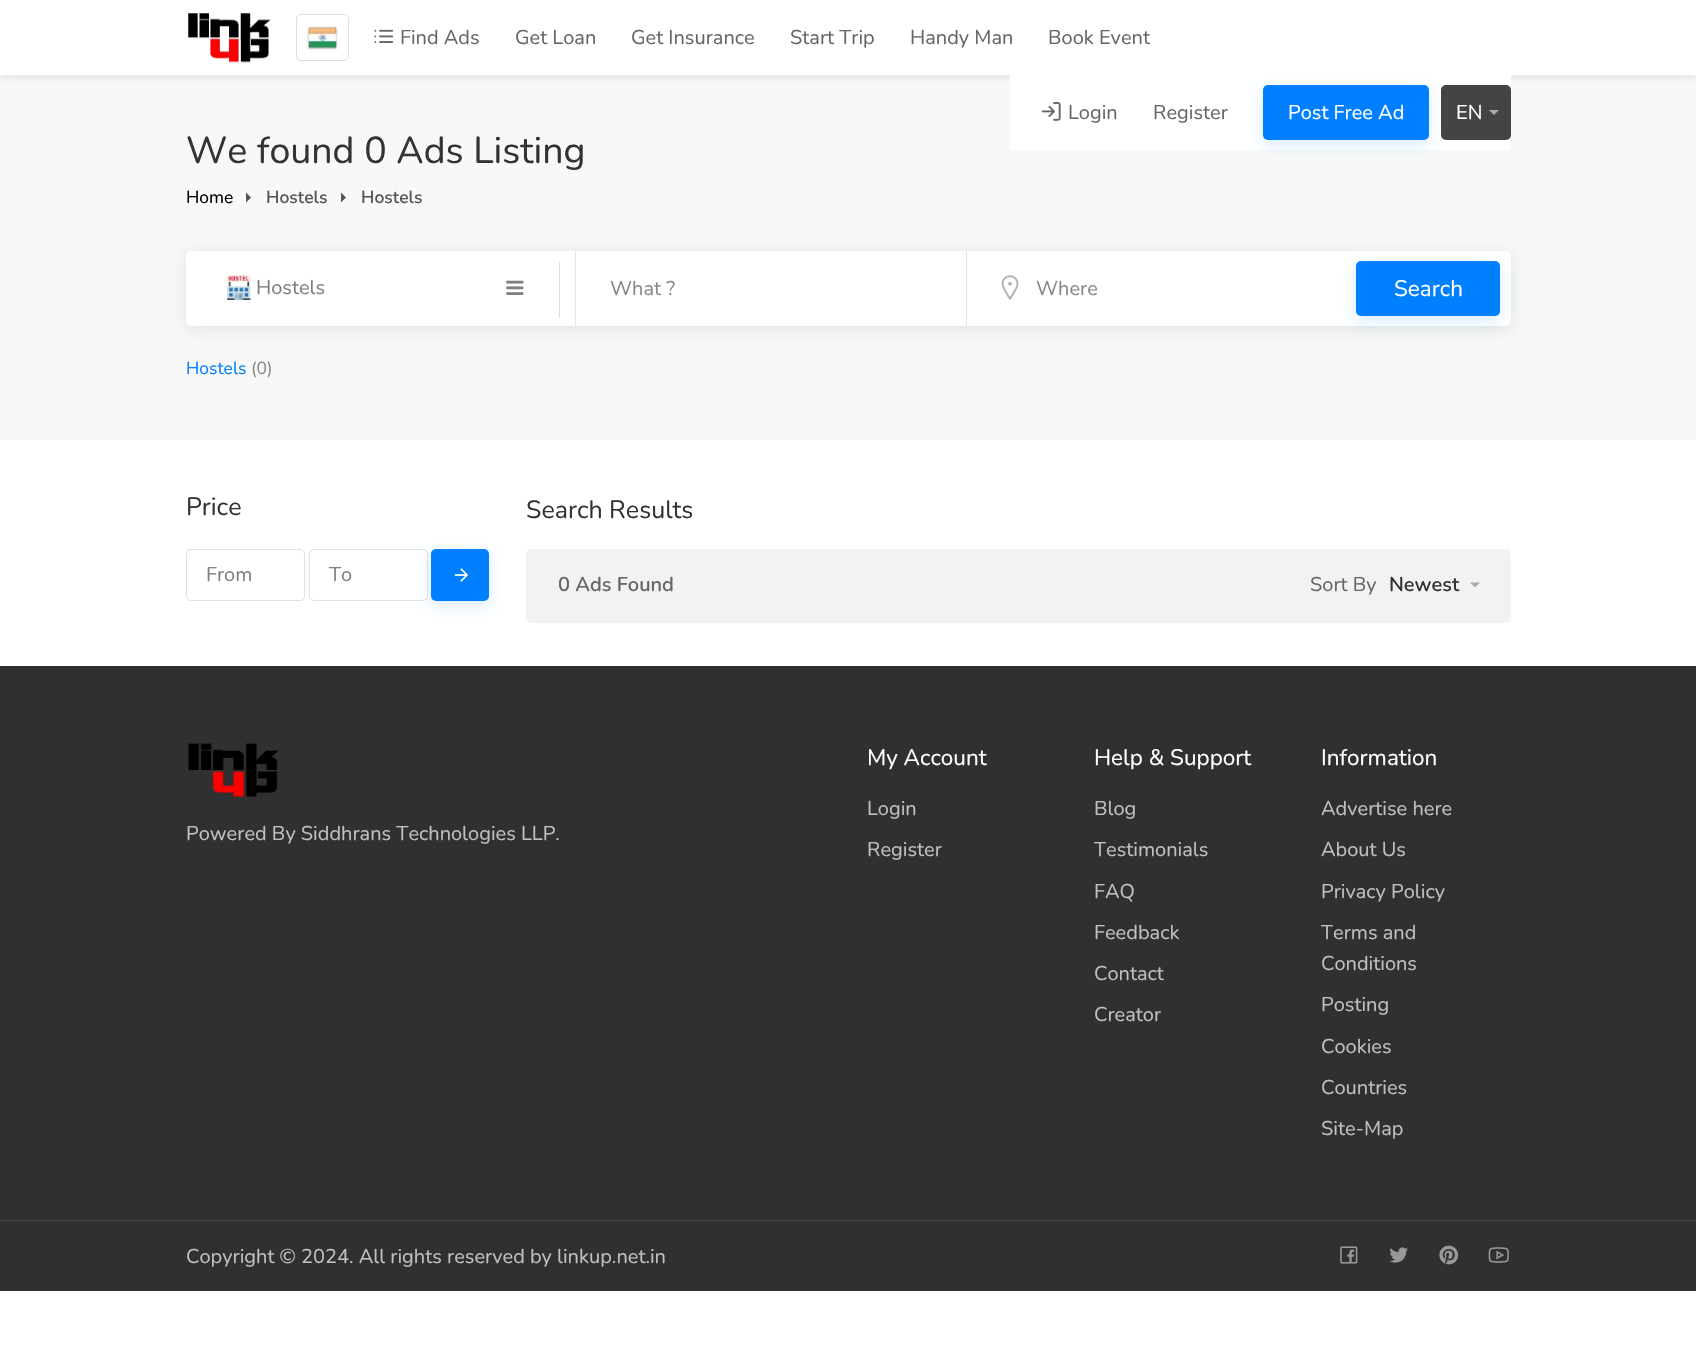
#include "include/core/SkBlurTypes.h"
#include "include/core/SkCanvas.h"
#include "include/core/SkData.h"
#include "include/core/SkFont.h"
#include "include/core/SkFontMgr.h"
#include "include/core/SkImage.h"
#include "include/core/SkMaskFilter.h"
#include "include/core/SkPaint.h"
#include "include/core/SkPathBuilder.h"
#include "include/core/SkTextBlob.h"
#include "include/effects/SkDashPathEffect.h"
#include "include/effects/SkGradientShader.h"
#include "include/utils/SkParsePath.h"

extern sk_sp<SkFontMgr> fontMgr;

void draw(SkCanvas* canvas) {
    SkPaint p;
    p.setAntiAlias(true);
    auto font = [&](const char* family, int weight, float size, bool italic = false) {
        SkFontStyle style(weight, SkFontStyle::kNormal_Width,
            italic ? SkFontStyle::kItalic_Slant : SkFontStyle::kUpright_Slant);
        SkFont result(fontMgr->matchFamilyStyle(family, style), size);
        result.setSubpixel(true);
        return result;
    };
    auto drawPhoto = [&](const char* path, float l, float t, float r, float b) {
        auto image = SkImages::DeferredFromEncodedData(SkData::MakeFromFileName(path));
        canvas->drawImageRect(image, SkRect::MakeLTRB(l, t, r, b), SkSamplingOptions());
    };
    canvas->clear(0xFFFFFFFF);
    p.setColor(0xFFF8F8F8);
    canvas->drawRect(SkRect::MakeLTRB(0, 75, 1696, 440), p);
    canvas->save();
    canvas->clipRect(SkRect::MakeLTRB(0, 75, 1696, 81));
    p.setColor(0x1F000000);
    p.setMaskFilter(SkMaskFilter::MakeBlur(kNormal_SkBlurStyle, 6));
    canvas->drawRect(SkRect::MakeLTRB(0, 0, 1696, 75), p);
    p.setMaskFilter(nullptr);
    canvas->restore();
    drawPhoto("media/1.png", 188, 13, 271, 63);
    p.setStyle(SkPaint::kStroke_Style);
    p.setStrokeWidth(1);
    p.setColor(0xFFDDDDDD);
    canvas->drawRoundRect(SkRect::MakeLTRB(296.5f, 14.5f, 348.5f, 60.5f), 4.5f, 4.5f, p);
    drawPhoto("media/2.png", 307, 26, 338, 50);
    drawPhoto("media/3.png", 374, 29, 394, 43);
    auto font1 = font("Nunito", 400, 20);
    p.setStyle(SkPaint::kFill_Style);
    p.setColor(0xFF666666);
    {
        const struct { const char* s; float x, y; } items[] = {
            {"Find Ads", 400, 44},
            {"Get Loan", 515, 44},
            {"Get Insurance", 631, 44},
            {"Start Trip", 790, 44},
            {"Handy Man", 910, 44},
            {"Book Event", 1048, 44},
        };
        for (auto [s, x, y] : items) {
            canvas->drawString(s, x, y, font1, p);
        }
    }
    p.setColor(0xFFFFFFFF);
    canvas->drawRect(SkRect::MakeLTRB(1010, 75, 1511, 150), p);
    drawPhoto("media/4.png", 1041, 102, 1061, 121);
    p.setColor(0xFF666666);
    canvas->drawString("Login", 1068, 119, font1, p);
    canvas->drawString("Register", 1153, 119, font1, p);
    p.setColor(0x260080FF);
    p.setMaskFilter(SkMaskFilter::MakeBlur(kNormal_SkBlurStyle, 7.5f));
    canvas->drawRoundRect(SkRect::MakeLTRB(1263, 90, 1429, 145), 5, 5, p);
    p.setMaskFilter(nullptr);
    p.setColor(0xFF0080FF);
    canvas->drawRoundRect(SkRect::MakeLTRB(1263, 85, 1429, 140), 5, 5, p);
    p.setColor(0xFFFFFFFF);
    canvas->drawString("Post Free Ad", 1288, 119, font1, p);
    p.setColor(0xFF444444);
    canvas->drawRoundRect(SkRect::MakeLTRB(1441, 85, 1511, 140), 5, 5, p);
    p.setColor(0xFFFFFFFF);
    canvas->drawString("EN", 1456, 119, font1, p);
    p.setColor(0xFFAAAAAA);
    canvas->drawPath(SkPathBuilder().moveTo(1489, 110).lineTo(1499, 110).lineTo(1494, 115).close().detach(), p);
    auto font2 = font("Nunito", 400, 37.5f);
    p.setColor(0xFF333333);
    canvas->drawString("We found 0 Ads Listing", 186, 163, font2, p);
    auto font3 = font("Nunito", 400, 17.5f);
    p.setColor(0xFF000000);
    canvas->drawString("Home", 186, 203, font3, p);
    p.setColor(0xFF555555);
    canvas->drawPath(SkPathBuilder().moveTo(246, 202.5f).lineTo(246, 192.5f).lineTo(251, 197.5f).close().detach(), p);
    auto font4 = font("Nunito", 600, 17.5f);
    canvas->drawString("Hostels", 266, 203, font4, p);
    canvas->drawPath(SkPathBuilder().moveTo(341, 202.5f).lineTo(341, 192.5f).lineTo(346, 197.5f).close().detach(), p);
    canvas->drawString("Hostels", 361, 203, font4, p);
    p.setColor(0x17000000);
    p.setMaskFilter(SkMaskFilter::MakeBlur(kNormal_SkBlurStyle, 7.5f));
    canvas->drawRoundRect(SkRect::MakeLTRB(186, 254, 1511, 329), 5, 5, p);
    p.setMaskFilter(nullptr);
    p.setColor(0xFFFFFFFF);
    canvas->drawRoundRect(SkRect::MakeLTRB(186, 251, 1511, 326), 5, 5, p);
    p.setColor(0xFFE4E4E4);
    canvas->drawRect(SkRect::MakeLTRB(575, 251, 576, 326), p);
    p.setColor(0xFFE0E0E0);
    canvas->drawRect(SkRect::MakeLTRB(559, 261, 560, 318), p);
    drawPhoto("media/5.png", 226, 275, 252, 300);
    p.setColor(0xFF808080);
    canvas->drawString("Hostels", 256, 294, font1, p);
    drawPhoto("media/6.png", 506, 280, 524, 295);
    p.setColor(0xFFE4E4E4);
    canvas->drawRect(SkRect::MakeLTRB(966, 251, 967, 326), p);
    p.setColor(0xFF888888);
    canvas->drawString("What ?", 610, 295, font1, p);
    drawPhoto("media/7.png", 1001, 275, 1019, 301);
    canvas->drawString("Where", 1036, 295, font1, p);
    p.setColor(0x260080FF);
    p.setMaskFilter(SkMaskFilter::MakeBlur(kNormal_SkBlurStyle, 7.5f));
    canvas->drawRoundRect(SkRect::MakeLTRB(1356, 266, 1500, 321), 5, 5, p);
    p.setMaskFilter(nullptr);
    p.setColor(0xFF0080FF);
    canvas->drawRoundRect(SkRect::MakeLTRB(1356, 261, 1500, 316), 5, 5, p);
    auto font5 = font("Nunito", 400, 22.5f);
    p.setColor(0xFFFFFFFF);
    canvas->drawString("Search", 1394, 296, font5, p);
    p.setColor(0xFF0080FF);
    canvas->drawString("Hostels", 186, 374, font3, p);
    p.setColor(0xFF888888);
    canvas->drawString("(0)", 251, 374, font3, p);
    auto font6 = font("Nunito", 400, 25);
    p.setColor(0xFF333333);
    canvas->drawString("Price", 186, 515, font6, p);
    p.setStyle(SkPaint::kStroke_Style);
    p.setColor(0xFFE0E0E0);
    canvas->drawRoundRect(SkRect::MakeLTRB(186.5f, 549.5f, 304.5f, 600.5f), 4.5f, 4.5f, p);
    p.setStyle(SkPaint::kFill_Style);
    p.setColor(0xFF808080);
    canvas->drawString("From", 206, 581, font1, p);
    p.setStyle(SkPaint::kStroke_Style);
    p.setColor(0xFFE0E0E0);
    canvas->drawRoundRect(SkRect::MakeLTRB(309.5f, 549.5f, 427.5f, 600.5f), 4.5f, 4.5f, p);
    p.setStyle(SkPaint::kFill_Style);
    p.setColor(0xFF808080);
    canvas->drawString("To", 329, 581, font1, p);
    p.setColor(0x260080FF);
    p.setMaskFilter(SkMaskFilter::MakeBlur(kNormal_SkBlurStyle, 7.5f));
    canvas->drawRoundRect(SkRect::MakeLTRB(431, 554, 489, 606), 5, 5, p);
    p.setMaskFilter(nullptr);
    p.setColor(0xFF0080FF);
    canvas->drawRoundRect(SkRect::MakeLTRB(431, 549, 489, 601), 5, 5, p);
    drawPhoto("media/8.png", 454, 568, 468, 582);
    p.setColor(0xFF333333);
    canvas->drawString("Search Results", 526, 518, font6, p);
    p.setColor(0xFFF2F2F2);
    canvas->drawRoundRect(SkRect::MakeLTRB(526, 549, 1511, 623), 5, 5, p);
    auto font7 = font("Nunito", 600, 20);
    p.setColor(0xFF666666);
    canvas->drawString("0 Ads Found", 558, 591, font7, p);
    canvas->drawString("Sort By", 1310, 591, font1, p);
    p.setColor(0xFF333333);
    canvas->drawString("Newest", 1389, 591, font7, p);
    p.setColor(0xFFAAAAAA);
    canvas->drawPath(SkPathBuilder().moveTo(1470, 582.5f).lineTo(1480, 582.5f).lineTo(1475, 587.5f).close().detach(), p);
    p.setColor(0xFF303030);
    canvas->drawRect(SkRect::MakeLTRB(0, 666, 1696, 1291), p);
    drawPhoto("media/9.png", 188, 743, 279, 797);
    p.setColor(0xFFC0C0C0);
    canvas->drawString("Powered By Siddhrans Technologies LLP.", 186, 840, font1, p);
    p.setColor(0xFFFFFFFF);
    canvas->drawString("My Account", 867, 765, font5, p);
    p.setColor(0xFFC0C0C0);
    canvas->drawString("Login", 867, 815, font1, p);
    canvas->drawString("Register", 867, 856, font1, p);
    p.setColor(0xFFFFFFFF);
    canvas->drawString("Help & Support", 1094, 765, font5, p);
    p.setColor(0xFFC0C0C0);
    {
        const struct { const char* s; float x, y; } items[] = {
            {"Blog", 1094, 815},
            {"Testimonials", 1094, 856},
            {"FAQ", 1094, 898},
            {"Feedback", 1094, 939},
            {"Contact", 1094, 980},
            {"Creator", 1094, 1021},
        };
        for (auto [s, x, y] : items) {
            canvas->drawString(s, x, y, font1, p);
        }
    }
    p.setColor(0xFFFFFFFF);
    canvas->drawString("Information", 1321, 765, font5, p);
    p.setColor(0xFFC0C0C0);
    {
        const struct { const char* s; float x, y; } items[] = {
            {"Advertise here", 1321, 815},
            {"About Us", 1321, 856},
            {"Privacy Policy", 1321, 898},
            {"Terms and", 1321, 939},
            {"Conditions", 1321, 970},
            {"Posting", 1321, 1011},
            {"Cookies", 1321, 1053},
            {"Countries", 1321, 1094},
            {"Site-Map", 1321, 1135},
        };
        for (auto [s, x, y] : items) {
            canvas->drawString(s, x, y, font1, p);
        }
    }
    p.setColor(0xFF484848);
    canvas->drawRect(SkRect::MakeLTRB(0, 1220, 1696, 1221), p);
    p.setColor(0xFFC0C0C0);
    canvas->drawString("Copyright © 2024. All rights reserved by linkup.net.in", 186, 1263, font1, p);
    drawPhoto("media/10.png", 1340, 1246, 1358, 1264);
    drawPhoto("media/11.png", 1389, 1247, 1408, 1263);
    drawPhoto("media/12.png", 1439, 1245, 1459, 1265);
    drawPhoto("media/13.png", 1488, 1247, 1509, 1263);
}
